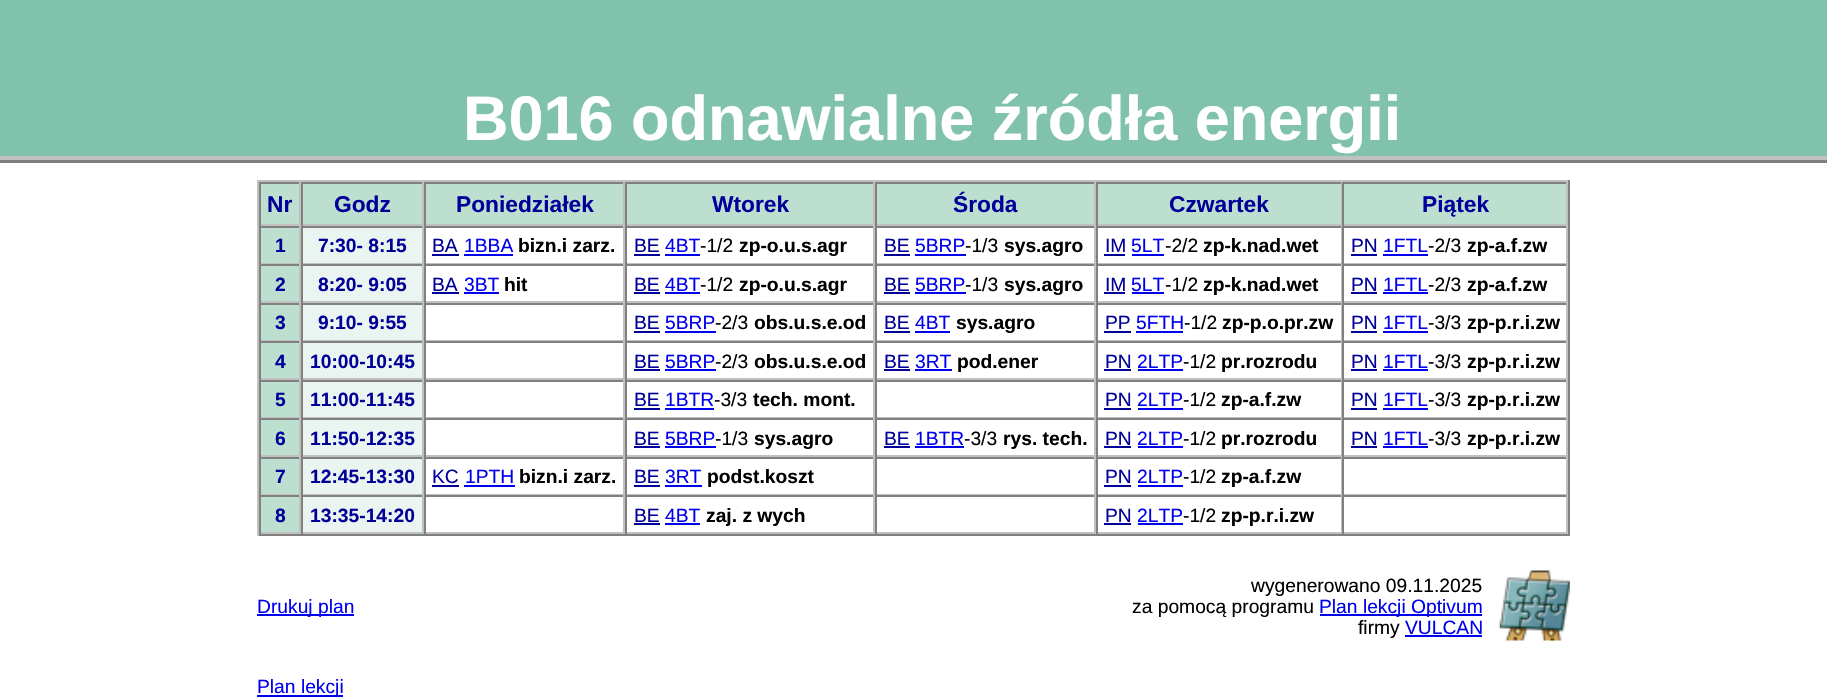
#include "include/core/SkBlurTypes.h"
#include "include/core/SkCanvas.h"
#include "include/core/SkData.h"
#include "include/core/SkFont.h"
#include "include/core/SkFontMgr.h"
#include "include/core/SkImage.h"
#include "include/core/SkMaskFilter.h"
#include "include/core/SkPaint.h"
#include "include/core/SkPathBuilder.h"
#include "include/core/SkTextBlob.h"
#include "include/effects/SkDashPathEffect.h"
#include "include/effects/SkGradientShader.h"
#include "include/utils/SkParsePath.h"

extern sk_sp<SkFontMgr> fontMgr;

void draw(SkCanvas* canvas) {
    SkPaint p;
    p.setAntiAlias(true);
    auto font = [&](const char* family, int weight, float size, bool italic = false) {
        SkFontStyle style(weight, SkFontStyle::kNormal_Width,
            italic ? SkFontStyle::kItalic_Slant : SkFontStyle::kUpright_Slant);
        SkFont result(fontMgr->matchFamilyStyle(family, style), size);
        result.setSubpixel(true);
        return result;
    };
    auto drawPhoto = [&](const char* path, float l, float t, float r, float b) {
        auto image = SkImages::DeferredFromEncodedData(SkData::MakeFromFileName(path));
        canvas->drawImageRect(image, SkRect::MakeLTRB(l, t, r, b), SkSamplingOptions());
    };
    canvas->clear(0xFFFFFFFF);
    {
        const struct { float l, t, r, b; SkColor color; } items[] = {
            {0, 0, 1827, 156, 0xFF80C2AB},
            {0, 160, 1827, 163, 0xFF808080},
            {0, 156, 1827, 160, 0xFFC0C0C0},
        };
        for (auto [l, t, r, b, color] : items) {
            p.setColor(color);
            canvas->drawRect(SkRect::MakeLTRB(l, t, r, b), p);
        }
    }
    auto font1 = font("Liberation Sans", 700, 63);
    p.setColor(0xFFFFFFFF);
    canvas->drawString("B016 odnawialne źródła energii", 463, 140, font1, p);
    {
        const struct { float l, t, r, b; SkColor color; } items[] = {
            {257, 180, 1570, 182, 0xFFC0C0C0},
            {1568, 180, 1570, 536, 0xFF808080},
            {257, 534, 1570, 536, 0xFF808080},
            {257, 180, 259, 536, 0xFFC0C0C0},
            {261, 184, 299, 224, 0xFFBDDFD0},
            {259, 182, 1568, 184, 0xFF808080},
            {299, 182, 301, 226, 0xFFC0C0C0},
            {259, 224, 301, 226, 0xFFC0C0C0},
            {259, 182, 261, 226, 0xFF808080},
        };
        for (auto [l, t, r, b, color] : items) {
            p.setColor(color);
            canvas->drawRect(SkRect::MakeLTRB(l, t, r, b), p);
        }
    }
    auto font2 = font("Liberation Sans", 700, 22.75f);
    p.setColor(0xFF000099);
    canvas->drawString("Nr", 267, 212, font2, p);
    {
        const struct { float l, t, r, b; SkColor color; } items[] = {
            {303, 184, 422, 224, 0xFFBDDFD0},
            {422, 182, 424, 226, 0xFFC0C0C0},
            {301, 224, 424, 226, 0xFFC0C0C0},
            {301, 182, 303, 226, 0xFF808080},
        };
        for (auto [l, t, r, b, color] : items) {
            p.setColor(color);
            canvas->drawRect(SkRect::MakeLTRB(l, t, r, b), p);
        }
    }
    p.setColor(0xFF000099);
    canvas->drawString("Godz", 334, 212, font2, p);
    {
        const struct { float l, t, r, b; SkColor color; } items[] = {
            {426, 184, 623, 224, 0xFFBDDFD0},
            {623, 182, 625, 226, 0xFFC0C0C0},
            {424, 224, 625, 226, 0xFFC0C0C0},
            {424, 182, 426, 226, 0xFF808080},
        };
        for (auto [l, t, r, b, color] : items) {
            p.setColor(color);
            canvas->drawRect(SkRect::MakeLTRB(l, t, r, b), p);
        }
    }
    p.setColor(0xFF000099);
    canvas->drawString("Poniedziałek", 456, 212, font2, p);
    {
        const struct { float l, t, r, b; SkColor color; } items[] = {
            {627, 184, 873, 224, 0xFFBDDFD0},
            {873, 182, 875, 226, 0xFFC0C0C0},
            {625, 224, 875, 226, 0xFFC0C0C0},
            {625, 182, 627, 226, 0xFF808080},
        };
        for (auto [l, t, r, b, color] : items) {
            p.setColor(color);
            canvas->drawRect(SkRect::MakeLTRB(l, t, r, b), p);
        }
    }
    p.setColor(0xFF000099);
    canvas->drawString("Wtorek", 712, 212, font2, p);
    {
        const struct { float l, t, r, b; SkColor color; } items[] = {
            {877, 184, 1094, 224, 0xFFBDDFD0},
            {1094, 182, 1096, 226, 0xFFC0C0C0},
            {875, 224, 1096, 226, 0xFFC0C0C0},
            {875, 182, 877, 226, 0xFF808080},
        };
        for (auto [l, t, r, b, color] : items) {
            p.setColor(color);
            canvas->drawRect(SkRect::MakeLTRB(l, t, r, b), p);
        }
    }
    p.setColor(0xFF000099);
    canvas->drawString("Środa", 953, 212, font2, p);
    {
        const struct { float l, t, r, b; SkColor color; } items[] = {
            {1098, 184, 1341, 224, 0xFFBDDFD0},
            {1341, 182, 1342, 226, 0xFFC0C0C0},
            {1096, 224, 1342, 226, 0xFFC0C0C0},
            {1096, 182, 1098, 226, 0xFF808080},
        };
        for (auto [l, t, r, b, color] : items) {
            p.setColor(color);
            canvas->drawRect(SkRect::MakeLTRB(l, t, r, b), p);
        }
    }
    p.setColor(0xFF000099);
    canvas->drawString("Czwartek", 1169, 212, font2, p);
    {
        const struct { float l, t, r, b; SkColor color; } items[] = {
            {1344, 184, 1566, 224, 0xFFBDDFD0},
            {1566, 182, 1568, 226, 0xFFC0C0C0},
            {1342, 224, 1568, 226, 0xFFC0C0C0},
            {1342, 182, 1344, 226, 0xFF808080},
        };
        for (auto [l, t, r, b, color] : items) {
            p.setColor(color);
            canvas->drawRect(SkRect::MakeLTRB(l, t, r, b), p);
        }
    }
    p.setColor(0xFF000099);
    canvas->drawString("Piątek", 1422, 212, font2, p);
    {
        const struct { float l, t, r, b; SkColor color; } items[] = {
            {261, 228, 299, 263, 0xFFBDDFD0},
            {259, 226, 1568, 228, 0xFF808080},
            {299, 226, 301, 264, 0xFFC0C0C0},
            {259, 263, 301, 264, 0xFFC0C0C0},
            {259, 226, 261, 264, 0xFF808080},
        };
        for (auto [l, t, r, b, color] : items) {
            p.setColor(color);
            canvas->drawRect(SkRect::MakeLTRB(l, t, r, b), p);
        }
    }
    auto font3 = font("Liberation Sans", 700, 19.25f);
    p.setColor(0xFF000099);
    canvas->drawString("1", 275, 252, font3, p);
    {
        const struct { float l, t, r, b; SkColor color; } items[] = {
            {303, 228, 422, 263, 0xFFEAF4F0},
            {422, 226, 424, 264, 0xFFC0C0C0},
            {301, 263, 424, 264, 0xFFC0C0C0},
            {301, 226, 303, 264, 0xFF808080},
        };
        for (auto [l, t, r, b, color] : items) {
            p.setColor(color);
            canvas->drawRect(SkRect::MakeLTRB(l, t, r, b), p);
        }
    }
    p.setColor(0xFF000099);
    canvas->drawString("7:30- 8:15", 318, 252, font3, p);
    {
        const struct { float l, t, r, b; SkColor color; } items[] = {
            {623, 226, 625, 264, 0xFFC0C0C0},
            {424, 263, 625, 264, 0xFFC0C0C0},
            {424, 226, 426, 264, 0xFF808080},
        };
        for (auto [l, t, r, b, color] : items) {
            p.setColor(color);
            canvas->drawRect(SkRect::MakeLTRB(l, t, r, b), p);
        }
    }
    auto font4 = font("Liberation Sans", 400, 19.25f);
    p.setColor(0xFF000099);
    canvas->drawString("BA", 432, 252, font4, p);
    canvas->drawRect(SkRect::MakeLTRB(432, 254, 459, 256), p);
    p.setColor(0xFF0000EE);
    canvas->drawString("1BBA", 464, 252, font4, p);
    canvas->drawRect(SkRect::MakeLTRB(464, 254, 513, 256), p);
    p.setColor(0xFF000000);
    canvas->drawString("bizn.i zarz.", 518, 252, font3, p);
    {
        const struct { float l, t, r, b; SkColor color; } items[] = {
            {873, 226, 875, 264, 0xFFC0C0C0},
            {625, 263, 875, 264, 0xFFC0C0C0},
            {625, 226, 627, 264, 0xFF808080},
        };
        for (auto [l, t, r, b, color] : items) {
            p.setColor(color);
            canvas->drawRect(SkRect::MakeLTRB(l, t, r, b), p);
        }
    }
    p.setColor(0xFF000099);
    canvas->drawString("BE", 634, 252, font4, p);
    canvas->drawRect(SkRect::MakeLTRB(634, 254, 660, 256), p);
    p.setColor(0xFF0000EE);
    canvas->drawString("4BT", 665, 252, font4, p);
    canvas->drawRect(SkRect::MakeLTRB(665, 254, 700, 256), p);
    p.setColor(0xFF000000);
    canvas->drawString("-1/2", 700, 252, font4, p);
    canvas->drawString("zp-o.u.s.agr", 739, 252, font3, p);
    {
        const struct { float l, t, r, b; SkColor color; } items[] = {
            {1094, 226, 1096, 264, 0xFFC0C0C0},
            {875, 263, 1096, 264, 0xFFC0C0C0},
            {875, 226, 877, 264, 0xFF808080},
        };
        for (auto [l, t, r, b, color] : items) {
            p.setColor(color);
            canvas->drawRect(SkRect::MakeLTRB(l, t, r, b), p);
        }
    }
    p.setColor(0xFF000099);
    canvas->drawString("BE", 884, 252, font4, p);
    canvas->drawRect(SkRect::MakeLTRB(884, 254, 910, 256), p);
    p.setColor(0xFF0000EE);
    canvas->drawString("5BRP", 915, 252, font4, p);
    canvas->drawRect(SkRect::MakeLTRB(915, 254, 966, 256), p);
    p.setColor(0xFF000000);
    canvas->drawString("-1/3", 965, 252, font4, p);
    canvas->drawString("sys.agro", 1004, 252, font3, p);
    {
        const struct { float l, t, r, b; SkColor color; } items[] = {
            {1341, 226, 1342, 264, 0xFFC0C0C0},
            {1096, 263, 1342, 264, 0xFFC0C0C0},
            {1096, 226, 1098, 264, 0xFF808080},
        };
        for (auto [l, t, r, b, color] : items) {
            p.setColor(color);
            canvas->drawRect(SkRect::MakeLTRB(l, t, r, b), p);
        }
    }
    p.setColor(0xFF000099);
    canvas->drawString("IM", 1105, 252, font4, p);
    canvas->drawRect(SkRect::MakeLTRB(1104, 254, 1125, 256), p);
    p.setColor(0xFF0000EE);
    canvas->drawString("5LT", 1131, 252, font4, p);
    canvas->drawRect(SkRect::MakeLTRB(1132, 254, 1164, 256), p);
    p.setColor(0xFF000000);
    canvas->drawString("-2/2", 1165, 252, font4, p);
    canvas->drawString("zp-k.nad.wet", 1203, 252, font3, p);
    {
        const struct { float l, t, r, b; SkColor color; } items[] = {
            {1566, 226, 1568, 264, 0xFFC0C0C0},
            {1342, 263, 1568, 264, 0xFFC0C0C0},
            {1342, 226, 1344, 264, 0xFF808080},
        };
        for (auto [l, t, r, b, color] : items) {
            p.setColor(color);
            canvas->drawRect(SkRect::MakeLTRB(l, t, r, b), p);
        }
    }
    p.setColor(0xFF000099);
    canvas->drawString("PN", 1351, 252, font4, p);
    canvas->drawRect(SkRect::MakeLTRB(1351, 254, 1377, 256), p);
    p.setColor(0xFF0000EE);
    canvas->drawString("1FTL", 1383, 252, font4, p);
    canvas->drawRect(SkRect::MakeLTRB(1383, 254, 1428, 256), p);
    p.setColor(0xFF000000);
    canvas->drawString("-2/3", 1428, 252, font4, p);
    canvas->drawString("zp-a.f.zw", 1467, 252, font3, p);
    {
        const struct { float l, t, r, b; SkColor color; } items[] = {
            {261, 266, 299, 301, 0xFFBDDFD0},
            {259, 264, 1568, 266, 0xFF808080},
            {299, 264, 301, 303, 0xFFC0C0C0},
            {259, 301, 301, 303, 0xFFC0C0C0},
            {259, 264, 261, 303, 0xFF808080},
        };
        for (auto [l, t, r, b, color] : items) {
            p.setColor(color);
            canvas->drawRect(SkRect::MakeLTRB(l, t, r, b), p);
        }
    }
    p.setColor(0xFF000099);
    canvas->drawString("2", 275, 291, font3, p);
    {
        const struct { float l, t, r, b; SkColor color; } items[] = {
            {303, 266, 422, 301, 0xFFEAF4F0},
            {422, 264, 424, 303, 0xFFC0C0C0},
            {301, 301, 424, 303, 0xFFC0C0C0},
            {301, 264, 303, 303, 0xFF808080},
        };
        for (auto [l, t, r, b, color] : items) {
            p.setColor(color);
            canvas->drawRect(SkRect::MakeLTRB(l, t, r, b), p);
        }
    }
    p.setColor(0xFF000099);
    canvas->drawString("8:20- 9:05", 318, 291, font3, p);
    {
        const struct { float l, t, r, b; SkColor color; } items[] = {
            {623, 264, 625, 303, 0xFFC0C0C0},
            {424, 301, 625, 303, 0xFFC0C0C0},
            {424, 264, 426, 303, 0xFF808080},
        };
        for (auto [l, t, r, b, color] : items) {
            p.setColor(color);
            canvas->drawRect(SkRect::MakeLTRB(l, t, r, b), p);
        }
    }
    p.setColor(0xFF000099);
    canvas->drawString("BA", 432, 291, font4, p);
    canvas->drawRect(SkRect::MakeLTRB(432, 292, 459, 294), p);
    p.setColor(0xFF0000EE);
    canvas->drawString("3BT", 464, 291, font4, p);
    canvas->drawRect(SkRect::MakeLTRB(464, 292, 499, 294), p);
    p.setColor(0xFF000000);
    canvas->drawString("hit", 504, 291, font3, p);
    {
        const struct { float l, t, r, b; SkColor color; } items[] = {
            {873, 264, 875, 303, 0xFFC0C0C0},
            {625, 301, 875, 303, 0xFFC0C0C0},
            {625, 264, 627, 303, 0xFF808080},
        };
        for (auto [l, t, r, b, color] : items) {
            p.setColor(color);
            canvas->drawRect(SkRect::MakeLTRB(l, t, r, b), p);
        }
    }
    p.setColor(0xFF000099);
    canvas->drawString("BE", 634, 291, font4, p);
    canvas->drawRect(SkRect::MakeLTRB(634, 292, 660, 294), p);
    p.setColor(0xFF0000EE);
    canvas->drawString("4BT", 665, 291, font4, p);
    canvas->drawRect(SkRect::MakeLTRB(665, 292, 700, 294), p);
    p.setColor(0xFF000000);
    canvas->drawString("-1/2", 700, 291, font4, p);
    canvas->drawString("zp-o.u.s.agr", 739, 291, font3, p);
    {
        const struct { float l, t, r, b; SkColor color; } items[] = {
            {1094, 264, 1096, 303, 0xFFC0C0C0},
            {875, 301, 1096, 303, 0xFFC0C0C0},
            {875, 264, 877, 303, 0xFF808080},
        };
        for (auto [l, t, r, b, color] : items) {
            p.setColor(color);
            canvas->drawRect(SkRect::MakeLTRB(l, t, r, b), p);
        }
    }
    p.setColor(0xFF000099);
    canvas->drawString("BE", 884, 291, font4, p);
    canvas->drawRect(SkRect::MakeLTRB(884, 292, 910, 294), p);
    p.setColor(0xFF0000EE);
    canvas->drawString("5BRP", 915, 291, font4, p);
    canvas->drawRect(SkRect::MakeLTRB(915, 292, 966, 294), p);
    p.setColor(0xFF000000);
    canvas->drawString("-1/3", 965, 291, font4, p);
    canvas->drawString("sys.agro", 1004, 291, font3, p);
    {
        const struct { float l, t, r, b; SkColor color; } items[] = {
            {1341, 264, 1342, 303, 0xFFC0C0C0},
            {1096, 301, 1342, 303, 0xFFC0C0C0},
            {1096, 264, 1098, 303, 0xFF808080},
        };
        for (auto [l, t, r, b, color] : items) {
            p.setColor(color);
            canvas->drawRect(SkRect::MakeLTRB(l, t, r, b), p);
        }
    }
    p.setColor(0xFF000099);
    canvas->drawString("IM", 1105, 291, font4, p);
    canvas->drawRect(SkRect::MakeLTRB(1104, 292, 1125, 294), p);
    p.setColor(0xFF0000EE);
    canvas->drawString("5LT", 1131, 291, font4, p);
    canvas->drawRect(SkRect::MakeLTRB(1132, 292, 1164, 294), p);
    p.setColor(0xFF000000);
    canvas->drawString("-1/2", 1165, 291, font4, p);
    canvas->drawString("zp-k.nad.wet", 1203, 291, font3, p);
    {
        const struct { float l, t, r, b; SkColor color; } items[] = {
            {1566, 264, 1568, 303, 0xFFC0C0C0},
            {1342, 301, 1568, 303, 0xFFC0C0C0},
            {1342, 264, 1344, 303, 0xFF808080},
        };
        for (auto [l, t, r, b, color] : items) {
            p.setColor(color);
            canvas->drawRect(SkRect::MakeLTRB(l, t, r, b), p);
        }
    }
    p.setColor(0xFF000099);
    canvas->drawString("PN", 1351, 291, font4, p);
    canvas->drawRect(SkRect::MakeLTRB(1351, 292, 1377, 294), p);
    p.setColor(0xFF0000EE);
    canvas->drawString("1FTL", 1383, 291, font4, p);
    canvas->drawRect(SkRect::MakeLTRB(1383, 292, 1428, 294), p);
    p.setColor(0xFF000000);
    canvas->drawString("-2/3", 1428, 291, font4, p);
    canvas->drawString("zp-a.f.zw", 1467, 291, font3, p);
    {
        const struct { float l, t, r, b; SkColor color; } items[] = {
            {261, 305, 299, 340, 0xFFBDDFD0},
            {259, 303, 1568, 305, 0xFF808080},
            {299, 303, 301, 341, 0xFFC0C0C0},
            {259, 340, 301, 341, 0xFFC0C0C0},
            {259, 303, 261, 341, 0xFF808080},
        };
        for (auto [l, t, r, b, color] : items) {
            p.setColor(color);
            canvas->drawRect(SkRect::MakeLTRB(l, t, r, b), p);
        }
    }
    p.setColor(0xFF000099);
    canvas->drawString("3", 275, 329, font3, p);
    {
        const struct { float l, t, r, b; SkColor color; } items[] = {
            {303, 305, 422, 340, 0xFFEAF4F0},
            {422, 303, 424, 341, 0xFFC0C0C0},
            {301, 340, 424, 341, 0xFFC0C0C0},
            {301, 303, 303, 341, 0xFF808080},
        };
        for (auto [l, t, r, b, color] : items) {
            p.setColor(color);
            canvas->drawRect(SkRect::MakeLTRB(l, t, r, b), p);
        }
    }
    p.setColor(0xFF000099);
    canvas->drawString("9:10- 9:55", 318, 329, font3, p);
    {
        const struct { float l, t, r, b; SkColor color; } items[] = {
            {623, 303, 625, 341, 0xFFC0C0C0},
            {424, 340, 625, 341, 0xFFC0C0C0},
            {424, 303, 426, 341, 0xFF808080},
            {873, 303, 875, 341, 0xFFC0C0C0},
            {625, 340, 875, 341, 0xFFC0C0C0},
            {625, 303, 627, 341, 0xFF808080},
        };
        for (auto [l, t, r, b, color] : items) {
            p.setColor(color);
            canvas->drawRect(SkRect::MakeLTRB(l, t, r, b), p);
        }
    }
    p.setColor(0xFF000099);
    canvas->drawString("BE", 634, 329, font4, p);
    canvas->drawRect(SkRect::MakeLTRB(634, 331, 660, 333), p);
    p.setColor(0xFF0000EE);
    canvas->drawString("5BRP", 665, 329, font4, p);
    canvas->drawRect(SkRect::MakeLTRB(665, 331, 716, 333), p);
    p.setColor(0xFF000000);
    canvas->drawString("-2/3", 715, 329, font4, p);
    canvas->drawString("obs.u.s.e.od", 754, 329, font3, p);
    {
        const struct { float l, t, r, b; SkColor color; } items[] = {
            {1094, 303, 1096, 341, 0xFFC0C0C0},
            {875, 340, 1096, 341, 0xFFC0C0C0},
            {875, 303, 877, 341, 0xFF808080},
        };
        for (auto [l, t, r, b, color] : items) {
            p.setColor(color);
            canvas->drawRect(SkRect::MakeLTRB(l, t, r, b), p);
        }
    }
    p.setColor(0xFF000099);
    canvas->drawString("BE", 884, 329, font4, p);
    canvas->drawRect(SkRect::MakeLTRB(884, 331, 910, 333), p);
    p.setColor(0xFF0000EE);
    canvas->drawString("4BT", 915, 329, font4, p);
    canvas->drawRect(SkRect::MakeLTRB(915, 331, 950, 333), p);
    p.setColor(0xFF000000);
    canvas->drawString("sys.agro", 956, 329, font3, p);
    {
        const struct { float l, t, r, b; SkColor color; } items[] = {
            {1341, 303, 1342, 341, 0xFFC0C0C0},
            {1096, 340, 1342, 341, 0xFFC0C0C0},
            {1096, 303, 1098, 341, 0xFF808080},
        };
        for (auto [l, t, r, b, color] : items) {
            p.setColor(color);
            canvas->drawRect(SkRect::MakeLTRB(l, t, r, b), p);
        }
    }
    p.setColor(0xFF000099);
    canvas->drawString("PP", 1105, 329, font4, p);
    canvas->drawRect(SkRect::MakeLTRB(1104, 331, 1131, 333), p);
    p.setColor(0xFF0000EE);
    canvas->drawString("5FTH", 1136, 329, font4, p);
    canvas->drawRect(SkRect::MakeLTRB(1136, 331, 1183, 333), p);
    p.setColor(0xFF000000);
    canvas->drawString("-1/2", 1184, 329, font4, p);
    canvas->drawString("zp-p.o.pr.zw", 1222, 329, font3, p);
    {
        const struct { float l, t, r, b; SkColor color; } items[] = {
            {1566, 303, 1568, 341, 0xFFC0C0C0},
            {1342, 340, 1568, 341, 0xFFC0C0C0},
            {1342, 303, 1344, 341, 0xFF808080},
        };
        for (auto [l, t, r, b, color] : items) {
            p.setColor(color);
            canvas->drawRect(SkRect::MakeLTRB(l, t, r, b), p);
        }
    }
    p.setColor(0xFF000099);
    canvas->drawString("PN", 1351, 329, font4, p);
    canvas->drawRect(SkRect::MakeLTRB(1351, 331, 1377, 333), p);
    p.setColor(0xFF0000EE);
    canvas->drawString("1FTL", 1383, 329, font4, p);
    canvas->drawRect(SkRect::MakeLTRB(1383, 331, 1428, 333), p);
    p.setColor(0xFF000000);
    canvas->drawString("-3/3", 1428, 329, font4, p);
    canvas->drawString("zp-p.r.i.zw", 1467, 329, font3, p);
    {
        const struct { float l, t, r, b; SkColor color; } items[] = {
            {261, 343, 299, 378, 0xFFBDDFD0},
            {259, 341, 1568, 343, 0xFF808080},
            {299, 341, 301, 380, 0xFFC0C0C0},
            {259, 378, 301, 380, 0xFFC0C0C0},
            {259, 341, 261, 380, 0xFF808080},
        };
        for (auto [l, t, r, b, color] : items) {
            p.setColor(color);
            canvas->drawRect(SkRect::MakeLTRB(l, t, r, b), p);
        }
    }
    p.setColor(0xFF000099);
    canvas->drawString("4", 275, 368, font3, p);
    {
        const struct { float l, t, r, b; SkColor color; } items[] = {
            {303, 343, 422, 378, 0xFFEAF4F0},
            {422, 341, 424, 380, 0xFFC0C0C0},
            {301, 378, 424, 380, 0xFFC0C0C0},
            {301, 341, 303, 380, 0xFF808080},
        };
        for (auto [l, t, r, b, color] : items) {
            p.setColor(color);
            canvas->drawRect(SkRect::MakeLTRB(l, t, r, b), p);
        }
    }
    p.setColor(0xFF000099);
    canvas->drawString("10:00-10:45", 310, 368, font3, p);
    {
        const struct { float l, t, r, b; SkColor color; } items[] = {
            {623, 341, 625, 380, 0xFFC0C0C0},
            {424, 378, 625, 380, 0xFFC0C0C0},
            {424, 341, 426, 380, 0xFF808080},
            {873, 341, 875, 380, 0xFFC0C0C0},
            {625, 378, 875, 380, 0xFFC0C0C0},
            {625, 341, 627, 380, 0xFF808080},
        };
        for (auto [l, t, r, b, color] : items) {
            p.setColor(color);
            canvas->drawRect(SkRect::MakeLTRB(l, t, r, b), p);
        }
    }
    p.setColor(0xFF000099);
    canvas->drawString("BE", 634, 368, font4, p);
    canvas->drawRect(SkRect::MakeLTRB(634, 369, 660, 371), p);
    p.setColor(0xFF0000EE);
    canvas->drawString("5BRP", 665, 368, font4, p);
    canvas->drawRect(SkRect::MakeLTRB(665, 369, 716, 371), p);
    p.setColor(0xFF000000);
    canvas->drawString("-2/3", 715, 368, font4, p);
    canvas->drawString("obs.u.s.e.od", 754, 368, font3, p);
    {
        const struct { float l, t, r, b; SkColor color; } items[] = {
            {1094, 341, 1096, 380, 0xFFC0C0C0},
            {875, 378, 1096, 380, 0xFFC0C0C0},
            {875, 341, 877, 380, 0xFF808080},
        };
        for (auto [l, t, r, b, color] : items) {
            p.setColor(color);
            canvas->drawRect(SkRect::MakeLTRB(l, t, r, b), p);
        }
    }
    p.setColor(0xFF000099);
    canvas->drawString("BE", 884, 368, font4, p);
    canvas->drawRect(SkRect::MakeLTRB(884, 369, 910, 371), p);
    p.setColor(0xFF0000EE);
    canvas->drawString("3RT", 915, 368, font4, p);
    canvas->drawRect(SkRect::MakeLTRB(915, 369, 952, 371), p);
    p.setColor(0xFF000000);
    canvas->drawString("pod.ener", 957, 368, font3, p);
    {
        const struct { float l, t, r, b; SkColor color; } items[] = {
            {1341, 341, 1342, 380, 0xFFC0C0C0},
            {1096, 378, 1342, 380, 0xFFC0C0C0},
            {1096, 341, 1098, 380, 0xFF808080},
        };
        for (auto [l, t, r, b, color] : items) {
            p.setColor(color);
            canvas->drawRect(SkRect::MakeLTRB(l, t, r, b), p);
        }
    }
    p.setColor(0xFF000099);
    canvas->drawString("PN", 1105, 368, font4, p);
    canvas->drawRect(SkRect::MakeLTRB(1104, 369, 1131, 371), p);
    p.setColor(0xFF0000EE);
    canvas->drawString("2LTP", 1137, 368, font4, p);
    canvas->drawRect(SkRect::MakeLTRB(1138, 369, 1183, 371), p);
    p.setColor(0xFF000000);
    canvas->drawString("-1/2", 1183, 368, font4, p);
    canvas->drawString("pr.rozrodu", 1221, 368, font3, p);
    {
        const struct { float l, t, r, b; SkColor color; } items[] = {
            {1566, 341, 1568, 380, 0xFFC0C0C0},
            {1342, 378, 1568, 380, 0xFFC0C0C0},
            {1342, 341, 1344, 380, 0xFF808080},
        };
        for (auto [l, t, r, b, color] : items) {
            p.setColor(color);
            canvas->drawRect(SkRect::MakeLTRB(l, t, r, b), p);
        }
    }
    p.setColor(0xFF000099);
    canvas->drawString("PN", 1351, 368, font4, p);
    canvas->drawRect(SkRect::MakeLTRB(1351, 369, 1377, 371), p);
    p.setColor(0xFF0000EE);
    canvas->drawString("1FTL", 1383, 368, font4, p);
    canvas->drawRect(SkRect::MakeLTRB(1383, 369, 1428, 371), p);
    p.setColor(0xFF000000);
    canvas->drawString("-3/3", 1428, 368, font4, p);
    canvas->drawString("zp-p.r.i.zw", 1467, 368, font3, p);
    {
        const struct { float l, t, r, b; SkColor color; } items[] = {
            {261, 382, 299, 417, 0xFFBDDFD0},
            {259, 380, 1568, 382, 0xFF808080},
            {299, 380, 301, 418, 0xFFC0C0C0},
            {259, 417, 301, 418, 0xFFC0C0C0},
            {259, 380, 261, 418, 0xFF808080},
        };
        for (auto [l, t, r, b, color] : items) {
            p.setColor(color);
            canvas->drawRect(SkRect::MakeLTRB(l, t, r, b), p);
        }
    }
    p.setColor(0xFF000099);
    canvas->drawString("5", 275, 406, font3, p);
    {
        const struct { float l, t, r, b; SkColor color; } items[] = {
            {303, 382, 422, 417, 0xFFEAF4F0},
            {422, 380, 424, 418, 0xFFC0C0C0},
            {301, 417, 424, 418, 0xFFC0C0C0},
            {301, 380, 303, 418, 0xFF808080},
        };
        for (auto [l, t, r, b, color] : items) {
            p.setColor(color);
            canvas->drawRect(SkRect::MakeLTRB(l, t, r, b), p);
        }
    }
    p.setColor(0xFF000099);
    canvas->drawString("11:00-11:45", 310, 406, font3, p);
    {
        const struct { float l, t, r, b; SkColor color; } items[] = {
            {623, 380, 625, 418, 0xFFC0C0C0},
            {424, 417, 625, 418, 0xFFC0C0C0},
            {424, 380, 426, 418, 0xFF808080},
            {873, 380, 875, 418, 0xFFC0C0C0},
            {625, 417, 875, 418, 0xFFC0C0C0},
            {625, 380, 627, 418, 0xFF808080},
        };
        for (auto [l, t, r, b, color] : items) {
            p.setColor(color);
            canvas->drawRect(SkRect::MakeLTRB(l, t, r, b), p);
        }
    }
    p.setColor(0xFF000099);
    canvas->drawString("BE", 634, 406, font4, p);
    canvas->drawRect(SkRect::MakeLTRB(634, 408, 660, 410), p);
    p.setColor(0xFF0000EE);
    canvas->drawString("1BTR", 665, 406, font4, p);
    canvas->drawRect(SkRect::MakeLTRB(665, 408, 714, 410), p);
    p.setColor(0xFF000000);
    canvas->drawString("-3/3", 714, 406, font4, p);
    canvas->drawString("tech. mont.", 753, 406, font3, p);
    {
        const struct { float l, t, r, b; SkColor color; } items[] = {
            {1094, 380, 1096, 418, 0xFFC0C0C0},
            {875, 417, 1096, 418, 0xFFC0C0C0},
            {875, 380, 877, 418, 0xFF808080},
            {1341, 380, 1342, 418, 0xFFC0C0C0},
            {1096, 417, 1342, 418, 0xFFC0C0C0},
            {1096, 380, 1098, 418, 0xFF808080},
        };
        for (auto [l, t, r, b, color] : items) {
            p.setColor(color);
            canvas->drawRect(SkRect::MakeLTRB(l, t, r, b), p);
        }
    }
    p.setColor(0xFF000099);
    canvas->drawString("PN", 1105, 406, font4, p);
    canvas->drawRect(SkRect::MakeLTRB(1104, 408, 1131, 410), p);
    p.setColor(0xFF0000EE);
    canvas->drawString("2LTP", 1137, 406, font4, p);
    canvas->drawRect(SkRect::MakeLTRB(1138, 408, 1183, 410), p);
    p.setColor(0xFF000000);
    canvas->drawString("-1/2", 1183, 406, font4, p);
    canvas->drawString("zp-a.f.zw", 1221, 406, font3, p);
    {
        const struct { float l, t, r, b; SkColor color; } items[] = {
            {1566, 380, 1568, 418, 0xFFC0C0C0},
            {1342, 417, 1568, 418, 0xFFC0C0C0},
            {1342, 380, 1344, 418, 0xFF808080},
        };
        for (auto [l, t, r, b, color] : items) {
            p.setColor(color);
            canvas->drawRect(SkRect::MakeLTRB(l, t, r, b), p);
        }
    }
    p.setColor(0xFF000099);
    canvas->drawString("PN", 1351, 406, font4, p);
    canvas->drawRect(SkRect::MakeLTRB(1351, 408, 1377, 410), p);
    p.setColor(0xFF0000EE);
    canvas->drawString("1FTL", 1383, 406, font4, p);
    canvas->drawRect(SkRect::MakeLTRB(1383, 408, 1428, 410), p);
    p.setColor(0xFF000000);
    canvas->drawString("-3/3", 1428, 406, font4, p);
    canvas->drawString("zp-p.r.i.zw", 1467, 406, font3, p);
    {
        const struct { float l, t, r, b; SkColor color; } items[] = {
            {261, 420, 299, 455, 0xFFBDDFD0},
            {259, 418, 1568, 420, 0xFF808080},
            {299, 418, 301, 457, 0xFFC0C0C0},
            {259, 455, 301, 457, 0xFFC0C0C0},
            {259, 418, 261, 457, 0xFF808080},
        };
        for (auto [l, t, r, b, color] : items) {
            p.setColor(color);
            canvas->drawRect(SkRect::MakeLTRB(l, t, r, b), p);
        }
    }
    p.setColor(0xFF000099);
    canvas->drawString("6", 275, 445, font3, p);
    {
        const struct { float l, t, r, b; SkColor color; } items[] = {
            {303, 420, 422, 455, 0xFFEAF4F0},
            {422, 418, 424, 457, 0xFFC0C0C0},
            {301, 455, 424, 457, 0xFFC0C0C0},
            {301, 418, 303, 457, 0xFF808080},
        };
        for (auto [l, t, r, b, color] : items) {
            p.setColor(color);
            canvas->drawRect(SkRect::MakeLTRB(l, t, r, b), p);
        }
    }
    p.setColor(0xFF000099);
    canvas->drawString("11:50-12:35", 310, 445, font3, p);
    {
        const struct { float l, t, r, b; SkColor color; } items[] = {
            {623, 418, 625, 457, 0xFFC0C0C0},
            {424, 455, 625, 457, 0xFFC0C0C0},
            {424, 418, 426, 457, 0xFF808080},
            {873, 418, 875, 457, 0xFFC0C0C0},
            {625, 455, 875, 457, 0xFFC0C0C0},
            {625, 418, 627, 457, 0xFF808080},
        };
        for (auto [l, t, r, b, color] : items) {
            p.setColor(color);
            canvas->drawRect(SkRect::MakeLTRB(l, t, r, b), p);
        }
    }
    p.setColor(0xFF000099);
    canvas->drawString("BE", 634, 445, font4, p);
    canvas->drawRect(SkRect::MakeLTRB(634, 446, 660, 448), p);
    p.setColor(0xFF0000EE);
    canvas->drawString("5BRP", 665, 445, font4, p);
    canvas->drawRect(SkRect::MakeLTRB(665, 446, 716, 448), p);
    p.setColor(0xFF000000);
    canvas->drawString("-1/3", 715, 445, font4, p);
    canvas->drawString("sys.agro", 754, 445, font3, p);
    {
        const struct { float l, t, r, b; SkColor color; } items[] = {
            {1094, 418, 1096, 457, 0xFFC0C0C0},
            {875, 455, 1096, 457, 0xFFC0C0C0},
            {875, 418, 877, 457, 0xFF808080},
        };
        for (auto [l, t, r, b, color] : items) {
            p.setColor(color);
            canvas->drawRect(SkRect::MakeLTRB(l, t, r, b), p);
        }
    }
    p.setColor(0xFF000099);
    canvas->drawString("BE", 884, 445, font4, p);
    canvas->drawRect(SkRect::MakeLTRB(884, 446, 910, 448), p);
    p.setColor(0xFF0000EE);
    canvas->drawString("1BTR", 915, 445, font4, p);
    canvas->drawRect(SkRect::MakeLTRB(915, 446, 964, 448), p);
    p.setColor(0xFF000000);
    canvas->drawString("-3/3", 964, 445, font4, p);
    canvas->drawString("rys. tech.", 1003, 445, font3, p);
    {
        const struct { float l, t, r, b; SkColor color; } items[] = {
            {1341, 418, 1342, 457, 0xFFC0C0C0},
            {1096, 455, 1342, 457, 0xFFC0C0C0},
            {1096, 418, 1098, 457, 0xFF808080},
        };
        for (auto [l, t, r, b, color] : items) {
            p.setColor(color);
            canvas->drawRect(SkRect::MakeLTRB(l, t, r, b), p);
        }
    }
    p.setColor(0xFF000099);
    canvas->drawString("PN", 1105, 445, font4, p);
    canvas->drawRect(SkRect::MakeLTRB(1104, 446, 1131, 448), p);
    p.setColor(0xFF0000EE);
    canvas->drawString("2LTP", 1137, 445, font4, p);
    canvas->drawRect(SkRect::MakeLTRB(1138, 446, 1183, 448), p);
    p.setColor(0xFF000000);
    canvas->drawString("-1/2", 1183, 445, font4, p);
    canvas->drawString("pr.rozrodu", 1221, 445, font3, p);
    {
        const struct { float l, t, r, b; SkColor color; } items[] = {
            {1566, 418, 1568, 457, 0xFFC0C0C0},
            {1342, 455, 1568, 457, 0xFFC0C0C0},
            {1342, 418, 1344, 457, 0xFF808080},
        };
        for (auto [l, t, r, b, color] : items) {
            p.setColor(color);
            canvas->drawRect(SkRect::MakeLTRB(l, t, r, b), p);
        }
    }
    p.setColor(0xFF000099);
    canvas->drawString("PN", 1351, 445, font4, p);
    canvas->drawRect(SkRect::MakeLTRB(1351, 446, 1377, 448), p);
    p.setColor(0xFF0000EE);
    canvas->drawString("1FTL", 1383, 445, font4, p);
    canvas->drawRect(SkRect::MakeLTRB(1383, 446, 1428, 448), p);
    p.setColor(0xFF000000);
    canvas->drawString("-3/3", 1428, 445, font4, p);
    canvas->drawString("zp-p.r.i.zw", 1467, 445, font3, p);
    {
        const struct { float l, t, r, b; SkColor color; } items[] = {
            {261, 459, 299, 494, 0xFFBDDFD0},
            {259, 457, 1568, 459, 0xFF808080},
            {299, 457, 301, 495, 0xFFC0C0C0},
            {259, 494, 301, 495, 0xFFC0C0C0},
            {259, 457, 261, 495, 0xFF808080},
        };
        for (auto [l, t, r, b, color] : items) {
            p.setColor(color);
            canvas->drawRect(SkRect::MakeLTRB(l, t, r, b), p);
        }
    }
    p.setColor(0xFF000099);
    canvas->drawString("7", 275, 483, font3, p);
    {
        const struct { float l, t, r, b; SkColor color; } items[] = {
            {303, 459, 422, 494, 0xFFEAF4F0},
            {422, 457, 424, 495, 0xFFC0C0C0},
            {301, 494, 424, 495, 0xFFC0C0C0},
            {301, 457, 303, 495, 0xFF808080},
        };
        for (auto [l, t, r, b, color] : items) {
            p.setColor(color);
            canvas->drawRect(SkRect::MakeLTRB(l, t, r, b), p);
        }
    }
    p.setColor(0xFF000099);
    canvas->drawString("12:45-13:30", 310, 483, font3, p);
    {
        const struct { float l, t, r, b; SkColor color; } items[] = {
            {623, 457, 625, 495, 0xFFC0C0C0},
            {424, 494, 625, 495, 0xFFC0C0C0},
            {424, 457, 426, 495, 0xFF808080},
        };
        for (auto [l, t, r, b, color] : items) {
            p.setColor(color);
            canvas->drawRect(SkRect::MakeLTRB(l, t, r, b), p);
        }
    }
    p.setColor(0xFF000099);
    canvas->drawString("KC", 432, 483, font4, p);
    canvas->drawRect(SkRect::MakeLTRB(432, 485, 459, 487), p);
    p.setColor(0xFF0000EE);
    canvas->drawString("1PTH", 465, 483, font4, p);
    canvas->drawRect(SkRect::MakeLTRB(464, 485, 515, 487), p);
    p.setColor(0xFF000000);
    canvas->drawString("bizn.i zarz.", 519, 483, font3, p);
    {
        const struct { float l, t, r, b; SkColor color; } items[] = {
            {873, 457, 875, 495, 0xFFC0C0C0},
            {625, 494, 875, 495, 0xFFC0C0C0},
            {625, 457, 627, 495, 0xFF808080},
        };
        for (auto [l, t, r, b, color] : items) {
            p.setColor(color);
            canvas->drawRect(SkRect::MakeLTRB(l, t, r, b), p);
        }
    }
    p.setColor(0xFF000099);
    canvas->drawString("BE", 634, 483, font4, p);
    canvas->drawRect(SkRect::MakeLTRB(634, 485, 660, 487), p);
    p.setColor(0xFF0000EE);
    canvas->drawString("3RT", 665, 483, font4, p);
    canvas->drawRect(SkRect::MakeLTRB(665, 485, 702, 487), p);
    p.setColor(0xFF000000);
    canvas->drawString("podst.koszt", 707, 483, font3, p);
    {
        const struct { float l, t, r, b; SkColor color; } items[] = {
            {1094, 457, 1096, 495, 0xFFC0C0C0},
            {875, 494, 1096, 495, 0xFFC0C0C0},
            {875, 457, 877, 495, 0xFF808080},
            {1341, 457, 1342, 495, 0xFFC0C0C0},
            {1096, 494, 1342, 495, 0xFFC0C0C0},
            {1096, 457, 1098, 495, 0xFF808080},
        };
        for (auto [l, t, r, b, color] : items) {
            p.setColor(color);
            canvas->drawRect(SkRect::MakeLTRB(l, t, r, b), p);
        }
    }
    p.setColor(0xFF000099);
    canvas->drawString("PN", 1105, 483, font4, p);
    canvas->drawRect(SkRect::MakeLTRB(1104, 485, 1131, 487), p);
    p.setColor(0xFF0000EE);
    canvas->drawString("2LTP", 1137, 483, font4, p);
    canvas->drawRect(SkRect::MakeLTRB(1138, 485, 1183, 487), p);
    p.setColor(0xFF000000);
    canvas->drawString("-1/2", 1183, 483, font4, p);
    canvas->drawString("zp-a.f.zw", 1221, 483, font3, p);
    {
        const struct { float l, t, r, b; SkColor color; } items[] = {
            {1566, 457, 1568, 495, 0xFFC0C0C0},
            {1342, 494, 1568, 495, 0xFFC0C0C0},
            {1342, 457, 1344, 495, 0xFF808080},
            {261, 497, 299, 532, 0xFFBDDFD0},
            {259, 495, 1568, 497, 0xFF808080},
            {299, 495, 301, 534, 0xFFC0C0C0},
            {259, 532, 301, 534, 0xFFC0C0C0},
            {259, 495, 261, 534, 0xFF808080},
        };
        for (auto [l, t, r, b, color] : items) {
            p.setColor(color);
            canvas->drawRect(SkRect::MakeLTRB(l, t, r, b), p);
        }
    }
    p.setColor(0xFF000099);
    canvas->drawString("8", 275, 522, font3, p);
    {
        const struct { float l, t, r, b; SkColor color; } items[] = {
            {303, 497, 422, 532, 0xFFEAF4F0},
            {422, 495, 424, 534, 0xFFC0C0C0},
            {301, 532, 424, 534, 0xFFC0C0C0},
            {301, 495, 303, 534, 0xFF808080},
        };
        for (auto [l, t, r, b, color] : items) {
            p.setColor(color);
            canvas->drawRect(SkRect::MakeLTRB(l, t, r, b), p);
        }
    }
    p.setColor(0xFF000099);
    canvas->drawString("13:35-14:20", 310, 522, font3, p);
    {
        const struct { float l, t, r, b; SkColor color; } items[] = {
            {623, 495, 625, 534, 0xFFC0C0C0},
            {424, 532, 625, 534, 0xFFC0C0C0},
            {424, 495, 426, 534, 0xFF808080},
            {873, 495, 875, 534, 0xFFC0C0C0},
            {625, 532, 875, 534, 0xFFC0C0C0},
            {625, 495, 627, 534, 0xFF808080},
        };
        for (auto [l, t, r, b, color] : items) {
            p.setColor(color);
            canvas->drawRect(SkRect::MakeLTRB(l, t, r, b), p);
        }
    }
    p.setColor(0xFF000099);
    canvas->drawString("BE", 634, 522, font4, p);
    canvas->drawRect(SkRect::MakeLTRB(634, 523, 660, 525), p);
    p.setColor(0xFF0000EE);
    canvas->drawString("4BT", 665, 522, font4, p);
    canvas->drawRect(SkRect::MakeLTRB(665, 523, 700, 525), p);
    p.setColor(0xFF000000);
    canvas->drawString("zaj. z wych", 706, 522, font3, p);
    {
        const struct { float l, t, r, b; SkColor color; } items[] = {
            {1094, 495, 1096, 534, 0xFFC0C0C0},
            {875, 532, 1096, 534, 0xFFC0C0C0},
            {875, 495, 877, 534, 0xFF808080},
            {1341, 495, 1342, 534, 0xFFC0C0C0},
            {1096, 532, 1342, 534, 0xFFC0C0C0},
            {1096, 495, 1098, 534, 0xFF808080},
        };
        for (auto [l, t, r, b, color] : items) {
            p.setColor(color);
            canvas->drawRect(SkRect::MakeLTRB(l, t, r, b), p);
        }
    }
    p.setColor(0xFF000099);
    canvas->drawString("PN", 1105, 522, font4, p);
    canvas->drawRect(SkRect::MakeLTRB(1104, 523, 1131, 525), p);
    p.setColor(0xFF0000EE);
    canvas->drawString("2LTP", 1137, 522, font4, p);
    canvas->drawRect(SkRect::MakeLTRB(1138, 523, 1183, 525), p);
    p.setColor(0xFF000000);
    canvas->drawString("-1/2", 1183, 522, font4, p);
    canvas->drawString("zp-p.r.i.zw", 1221, 522, font3, p);
    {
        const struct { float l, t, r, b; SkColor color; } items[] = {
            {1566, 495, 1568, 534, 0xFFC0C0C0},
            {1342, 532, 1568, 534, 0xFFC0C0C0},
            {1342, 495, 1344, 534, 0xFF808080},
            {257, 614, 354, 616, 0xFF0000EE},
        };
        for (auto [l, t, r, b, color] : items) {
            p.setColor(color);
            canvas->drawRect(SkRect::MakeLTRB(l, t, r, b), p);
        }
    }
    canvas->drawString("Drukuj plan", 257, 613, font4, p);
    p.setColor(0xFF000000);
    canvas->drawString("wygenerowano 09.11.2025", 1251, 592, font4, p);
    canvas->drawString("za pomocą programu", 1132, 613, font4, p);
    p.setColor(0xFF0000EE);
    canvas->drawRect(SkRect::MakeLTRB(1320, 614, 1482, 616), p);
    canvas->drawString("Plan lekcji Optivum", 1319, 613, font4, p);
    p.setColor(0xFF000000);
    canvas->drawString("firmy", 1358, 634, font4, p);
    p.setColor(0xFF0000EE);
    canvas->drawString("VULCAN", 1405, 634, font4, p);
    canvas->drawRect(SkRect::MakeLTRB(1405, 635, 1482, 637), p);
    drawPhoto("media/1.png", 1499, 570, 1570, 641);
    canvas->drawRect(SkRect::MakeLTRB(257, 695, 343, 697), p);
    canvas->drawString("Plan lekcji", 257, 693, font4, p);
}
